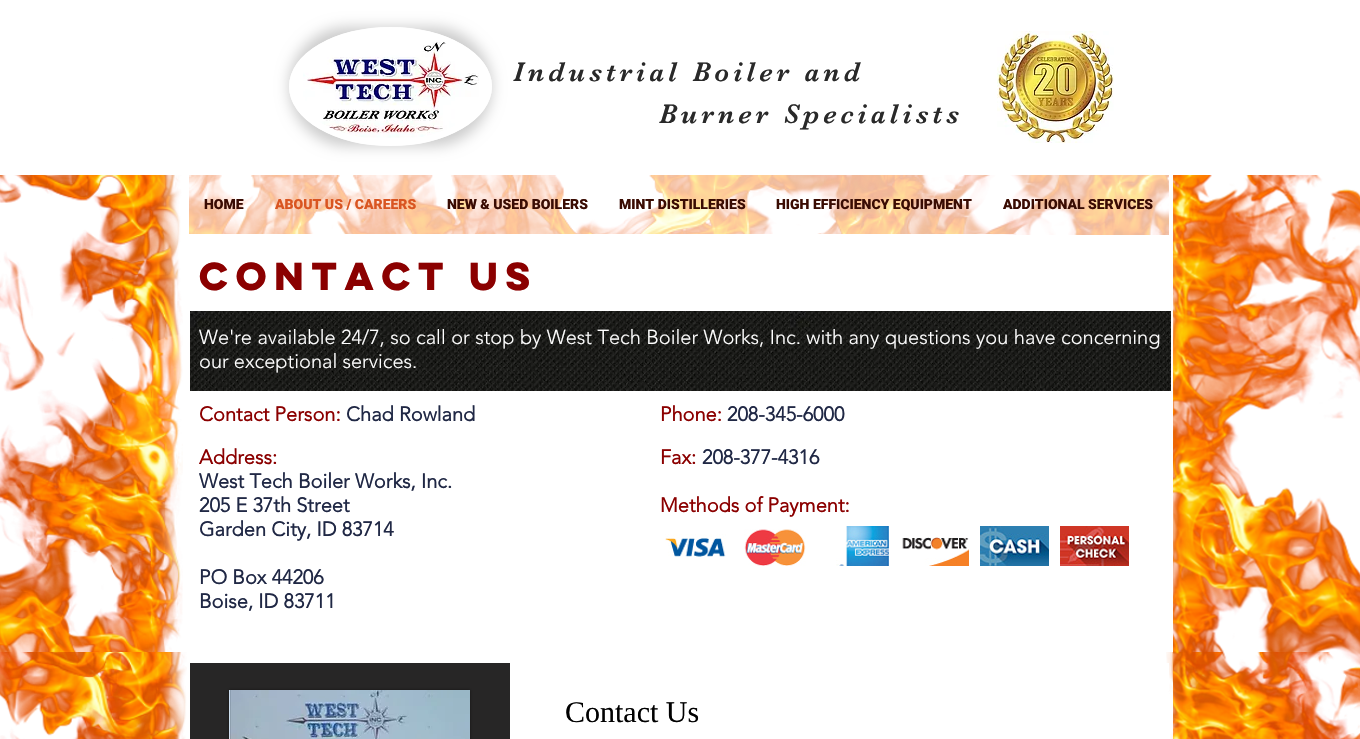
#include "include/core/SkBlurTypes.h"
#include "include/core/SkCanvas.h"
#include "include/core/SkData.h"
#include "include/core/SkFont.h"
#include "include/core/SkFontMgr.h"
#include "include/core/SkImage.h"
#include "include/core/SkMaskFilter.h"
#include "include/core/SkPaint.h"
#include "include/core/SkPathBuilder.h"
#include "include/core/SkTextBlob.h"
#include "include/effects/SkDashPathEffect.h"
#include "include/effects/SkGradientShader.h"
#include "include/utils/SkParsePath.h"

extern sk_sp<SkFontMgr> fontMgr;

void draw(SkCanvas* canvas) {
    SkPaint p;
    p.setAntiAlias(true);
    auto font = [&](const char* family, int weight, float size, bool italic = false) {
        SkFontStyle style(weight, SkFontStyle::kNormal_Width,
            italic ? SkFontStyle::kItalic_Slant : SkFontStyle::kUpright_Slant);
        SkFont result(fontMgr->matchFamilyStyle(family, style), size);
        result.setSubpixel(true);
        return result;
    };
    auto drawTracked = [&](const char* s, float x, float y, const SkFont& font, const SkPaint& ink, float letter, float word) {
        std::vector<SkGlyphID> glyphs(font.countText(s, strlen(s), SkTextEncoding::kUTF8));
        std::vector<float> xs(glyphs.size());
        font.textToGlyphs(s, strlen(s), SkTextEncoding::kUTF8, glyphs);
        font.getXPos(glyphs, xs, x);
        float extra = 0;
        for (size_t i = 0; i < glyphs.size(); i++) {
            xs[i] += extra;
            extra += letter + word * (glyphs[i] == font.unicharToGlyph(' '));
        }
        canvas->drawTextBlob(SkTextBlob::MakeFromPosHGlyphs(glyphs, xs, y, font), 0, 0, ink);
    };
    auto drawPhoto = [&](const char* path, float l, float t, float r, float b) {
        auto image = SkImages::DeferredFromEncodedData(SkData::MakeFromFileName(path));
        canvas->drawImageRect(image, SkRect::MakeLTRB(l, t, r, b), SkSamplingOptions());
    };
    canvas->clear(0xFFFFFFFF);
    p.setColor(0x33000000);
    p.setMaskFilter(SkMaskFilter::MakeBlur(kNormal_SkBlurStyle, 7));
    canvas->drawRoundRect(SkRect::MakeLTRB(289, 27, 492, 146), 59.5f, 59.5f, p);
    p.setMaskFilter(nullptr);
    p.setColor(0xFFFFFFFF);
    canvas->drawOval(SkRect::MakeLTRB(289, 27, 492, 146), p);
    p.setStyle(SkPaint::kStroke_Style);
    p.setStrokeWidth(6);
    canvas->drawPath(SkPathBuilder().moveTo(390.5f, 30).cubicTo(445, 30, 489, 55.5f, 489, 86.5f).cubicTo(489, 117.5f, 445, 143, 390.5f, 143).cubicTo(336, 143, 292, 117.5f, 292, 86.5f).cubicTo(292, 55.5f, 336, 30, 390.5f, 30).close().detach(), p);
    drawPhoto("media/1.png", 303, 42, 479, 138);
    auto font1 = font("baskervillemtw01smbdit", 400, 28);
    p.setStyle(SkPaint::kFill_Style);
    p.setColor(0xFF292929);
    drawTracked("Industrial Boiler and", 513, 81, font1, p, 4.2f, 0);
    drawTracked("Burner Specialists", 659, 123, font1, p, 4.2f, 0);
    drawPhoto("media/2.png", 997, 31, 1114, 143);
    drawPhoto("media/3.png", 189, 175, 1061, 234);
    drawPhoto("media/4.png", 789, 175, 1169, 235);
    auto font2 = font("Roboto", 900, 14);
    p.setColor(0xFF3A0C03);
    canvas->drawString("HOME", 204, 209, font2, p);
    p.setColor(0xFFD95521);
    canvas->drawString("ABOUT US / CAREERS", 275, 209, font2, p);
    p.setColor(0xFF3A0C03);
    {
        const struct { const char* s; float x, y; } items[] = {
            {"NEW & USED BOILERS", 447, 209},
            {"MINT DISTILLERIES", 619, 209},
            {"HIGH EFFICIENCY EQUIPMENT", 776, 209},
            {"ADDITIONAL SERVICES", 1003, 209},
        };
        for (auto [s, x, y] : items) {
            canvas->drawString(s, x, y, font2, p);
        }
    }
    drawPhoto("media/5.png", 0, 175, 183, 739);
    auto font3 = font("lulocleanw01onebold", 700, 35);
    p.setColor(0xFF8B0000);
    canvas->drawString("Contact Us", 199, 290, font3, p);
    drawPhoto("media/16.png", 1166, 652, 1360, 739);
    drawPhoto("media/6.png", 1173, 175, 1360, 739);
    drawPhoto("media/7.png", 190, 311, 790, 391);
    drawPhoto("media/8.png", 790, 311, 1171, 391);
    auto font4 = font("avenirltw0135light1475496", 300, 20);
    p.setColor(0xFFFFFFFF);
    drawTracked("We're available 24/7, so call or stop by West Tech Boiler Works, Inc. with any questions you have concerning", 199, 344, font4, p, 0, 0.25f);
    canvas->drawString("our exceptional services.", 199, 368, font4, p);
    auto font5 = font("avenirltw0135light1475496", 700, 20);
    p.setColor(0xFF8B0000);
    canvas->drawString("Contact Person:", 199, 421, font5, p);
    p.setColor(0xFF202845);
    canvas->drawString("Chad Rowland", 346, 421, font5, p);
    p.setColor(0xFF8B0000);
    canvas->drawString("Address:", 199, 464, font5, p);
    p.setColor(0xFF202845);
    {
        const struct { const char* s; float x, y; } items[] = {
            {"West Tech Boiler Works, Inc.", 199, 488},
            {"205 E 37th Street", 199, 512},
            {"Garden City, ID 83714", 199, 536},
            {"PO Box 44206", 199, 584},
            {"Boise, ID 83711", 199, 608},
        };
        for (auto [s, x, y] : items) {
            canvas->drawString(s, x, y, font5, p);
        }
    }
    p.setColor(0xFF8B0000);
    canvas->drawString("Phone:", 660, 421, font5, p);
    p.setColor(0xFF202845);
    canvas->drawString("208-345-6000", 727, 421, font5, p);
    p.setColor(0xFF8B0000);
    canvas->drawString("Fax:", 660, 464, font5, p);
    p.setColor(0xFF202845);
    canvas->drawString("208-377-4316", 702, 464, font5, p);
    p.setColor(0xFF8B0000);
    canvas->drawString("Methods of Payment:", 660, 512, font5, p);
    drawPhoto("media/9.png", 665, 534, 726, 557);
    drawPhoto("media/10.png", 744, 529, 806, 566);
    drawPhoto("media/11.png", 836, 526, 889, 566);
    drawPhoto("media/12.png", 902, 537, 969, 566);
    drawPhoto("media/13.png", 980, 526, 1049, 566);
    drawPhoto("media/14.png", 1060, 526, 1129, 566);
    drawPhoto("media/15.png", 0, 652, 187, 739);
    p.setColor(0xFF272626);
    canvas->drawRect(SkRect::MakeLTRB(190, 663, 510, 739), p);
    p.setColor(0x80000000);
    p.setMaskFilter(SkMaskFilter::MakeBlur(kNormal_SkBlurStyle, 1.5f));
    canvas->drawRect(SkRect::MakeLTRB(229, 690, 470, 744), p);
    p.setMaskFilter(nullptr);
    drawPhoto("media/17.png", 229, 690, 470, 739);
    p.setColor(0xFFFFFFFF);
    canvas->drawRect(SkRect::MakeLTRB(1166, 663, 1169, 691), p);
    auto font6 = font("Liberation Serif", 400, 30);
    p.setColor(0xFF000000);
    canvas->drawString("Contact Us", 565, 722, font6, p);
}
